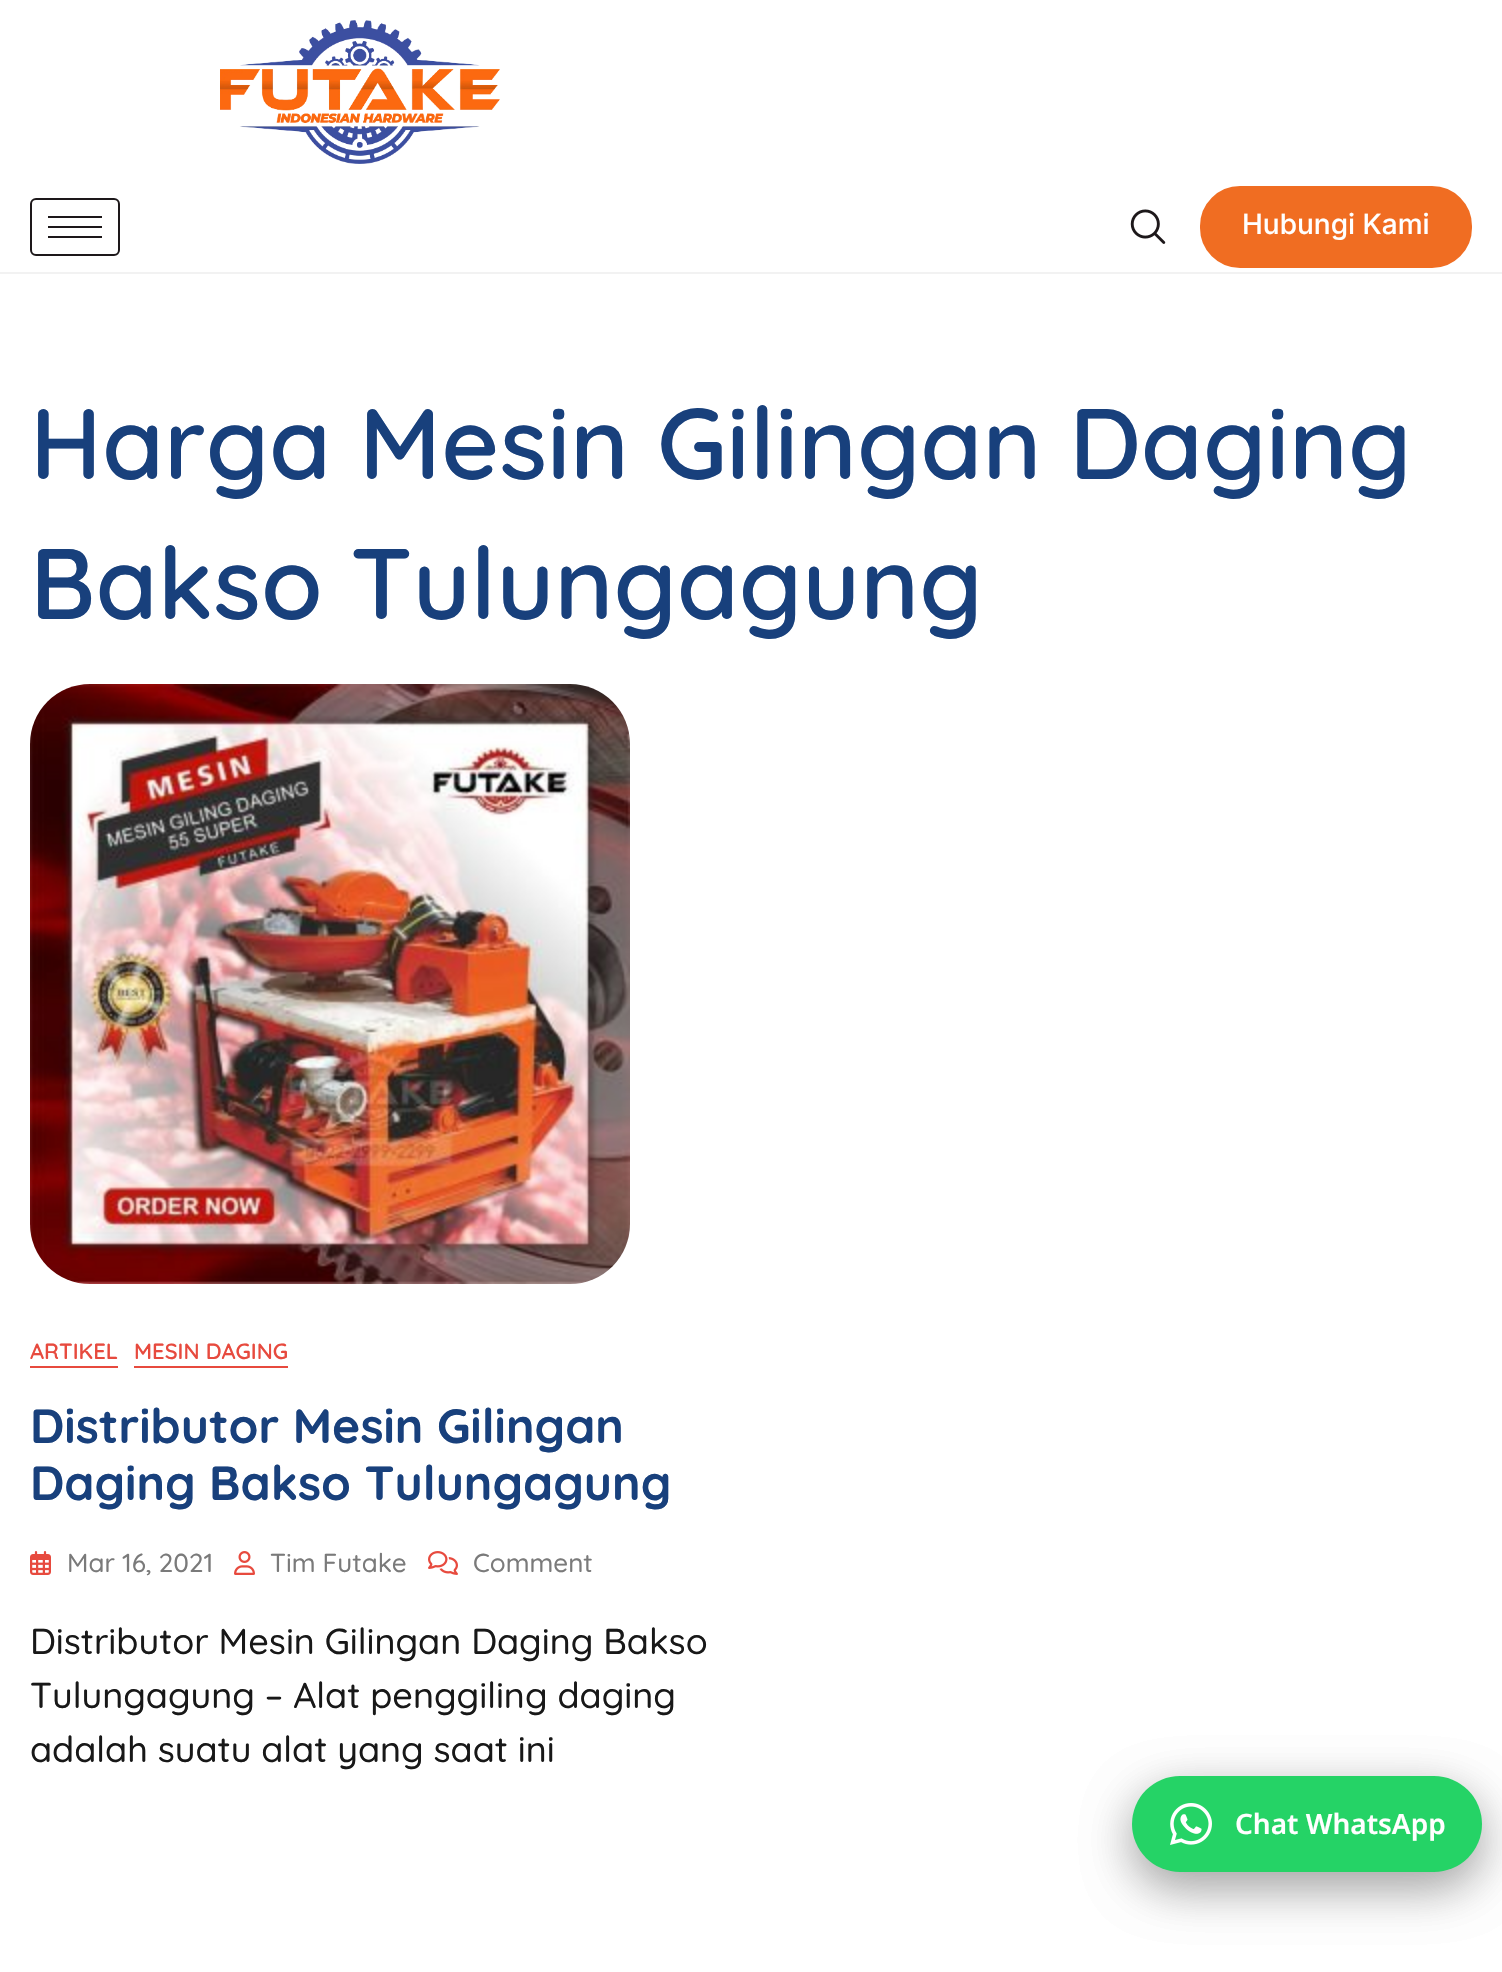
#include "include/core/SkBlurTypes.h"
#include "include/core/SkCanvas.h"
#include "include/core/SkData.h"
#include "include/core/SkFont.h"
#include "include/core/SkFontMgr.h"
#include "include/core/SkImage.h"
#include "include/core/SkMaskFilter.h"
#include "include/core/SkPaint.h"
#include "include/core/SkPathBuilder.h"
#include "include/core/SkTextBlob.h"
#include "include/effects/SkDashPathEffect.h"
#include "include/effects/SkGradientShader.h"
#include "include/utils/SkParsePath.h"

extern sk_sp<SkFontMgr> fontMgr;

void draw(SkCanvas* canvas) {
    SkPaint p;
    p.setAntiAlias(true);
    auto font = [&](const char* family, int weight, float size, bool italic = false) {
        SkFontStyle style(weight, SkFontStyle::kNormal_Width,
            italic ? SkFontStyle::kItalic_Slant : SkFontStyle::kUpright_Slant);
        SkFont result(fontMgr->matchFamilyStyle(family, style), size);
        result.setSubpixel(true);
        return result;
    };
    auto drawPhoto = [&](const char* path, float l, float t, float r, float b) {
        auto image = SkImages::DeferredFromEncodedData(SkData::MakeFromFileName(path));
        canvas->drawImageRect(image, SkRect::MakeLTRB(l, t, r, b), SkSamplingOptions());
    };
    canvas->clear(0xFFFFFFFF);
    drawPhoto("media/1.png", 220, 20, 500, 164);
    p.setStyle(SkPaint::kStroke_Style);
    p.setStrokeWidth(2);
    p.setColor(0xFF1D181A);
    canvas->drawRoundRect(SkRect::MakeLTRB(31, 199, 119, 255), 5, 5, p);
    p.setStyle(SkPaint::kFill_Style);
    {
        const struct { float l, t, r, b; SkColor color; } items[] = {
            {48, 216, 102, 218, 0xFF1D181A},
            {48, 226, 102, 228, 0xFF1D181A},
            {48, 236, 102, 238, 0xFF1D181A},
        };
        for (auto [l, t, r, b, color] : items) {
            p.setColor(color);
            canvas->drawRect(SkRect::MakeLTRB(l, t, r, b), p);
        }
    }
    drawPhoto("media/2.png", 1130, 209, 1166, 244);
    p.setColor(0xFFF06D22);
    canvas->drawRoundRect(SkRect::MakeLTRB(1201, 187, 1471, 267), 39, 39, p);
    p.setStyle(SkPaint::kStroke_Style);
    canvas->drawRoundRect(SkRect::MakeLTRB(1201, 187, 1471, 267), 39, 39, p);
    auto font1 = font("Inter", 500, 28);
    p.setStyle(SkPaint::kFill_Style);
    p.setColor(0xFFFFFFFF);
    canvas->drawString("Hubungi Kami", 1242, 234, font1, p);
    p.setColor(0xFFF2F2F2);
    canvas->drawRect(SkRect::MakeLTRB(0, 272, 1502, 274), p);
    auto font2 = font("Quicksand", 600, 100);
    p.setColor(0xFF18407C);
    canvas->drawString("Harga Mesin Gilingan Daging", 30, 479, font2, p);
    canvas->drawString("Bakso Tulungagung", 30, 619, font2, p);
    drawPhoto("media/3.png", 30, 684, 630, 1284);
    auto font3 = font("Quicksand", 600, 22);
    p.setColor(0xFFE74A3E);
    canvas->drawString("ARTIKEL", 30, 1359, font3, p);
    canvas->drawRect(SkRect::MakeLTRB(30, 1366, 118, 1368), p);
    canvas->drawString("MESIN DAGING", 134, 1359, font3, p);
    canvas->drawRect(SkRect::MakeLTRB(134, 1366, 288, 1368), p);
    auto font4 = font("Quicksand", 700, 48);
    p.setColor(0xFF18407C);
    canvas->drawString("Distributor Mesin Gilingan", 30, 1443, font4, p);
    canvas->drawString("Daging Bakso Tulungagung", 30, 1500, font4, p);
    drawPhoto("media/4.png", 30, 1551, 51, 1575);
    auto font5 = font("Quicksand", 500, 26);
    p.setColor(0xFF7A7A7A);
    canvas->drawString("Mar 16, 2021", 67, 1572, font5, p);
    drawPhoto("media/5.png", 234, 1551, 255, 1575);
    canvas->drawString("Tim Futake", 270, 1572, font5, p);
    drawPhoto("media/6.png", 428, 1551, 458, 1575);
    canvas->drawString("Comment", 473, 1572, font5, p);
    auto font6 = font("Quicksand", 500, 36);
    p.setColor(0xFF181818);
    {
        const struct { const char* s; float x, y; } items[] = {
            {"Distributor Mesin Gilingan Daging Bakso", 30, 1654},
            {"Tulungagung – Alat penggiling daging", 30, 1708},
            {"adalah suatu alat yang saat ini", 30, 1762},
        };
        for (auto [s, x, y] : items) {
            canvas->drawString(s, x, y, font6, p);
        }
    }
    p.setColor(0x33000000);
    p.setMaskFilter(SkMaskFilter::MakeBlur(kNormal_SkBlurStyle, 24));
    canvas->drawRoundRect(SkRect::MakeLTRB(1132, 1792, 1482, 1888), 48, 48, p);
    p.setMaskFilter(nullptr);
    p.setMaskFilter(SkMaskFilter::MakeBlur(kNormal_SkBlurStyle, 24));
    canvas->drawRoundRect(SkRect::MakeLTRB(1132, 1792, 1482, 1888), 48, 48, p);
    p.setMaskFilter(nullptr);
    p.setColor(0xFF25D366);
    canvas->drawRoundRect(SkRect::MakeLTRB(1132, 1776, 1482, 1872), 48, 48, p);
    drawPhoto("media/7.png", 1170, 1803, 1212, 1845);
    auto font7 = font("Noto Sans", 600, 28);
    p.setColor(0xFFFFFFFF);
    canvas->drawString("Chat WhatsApp", 1235, 1834, font7, p);
}
